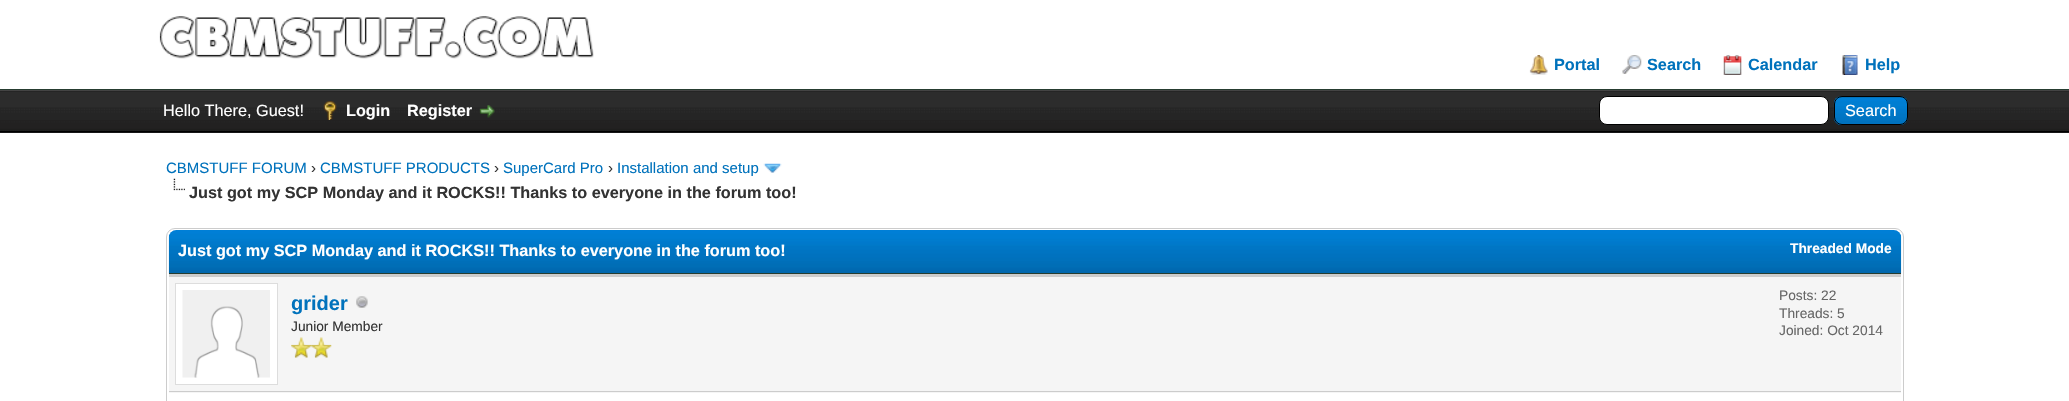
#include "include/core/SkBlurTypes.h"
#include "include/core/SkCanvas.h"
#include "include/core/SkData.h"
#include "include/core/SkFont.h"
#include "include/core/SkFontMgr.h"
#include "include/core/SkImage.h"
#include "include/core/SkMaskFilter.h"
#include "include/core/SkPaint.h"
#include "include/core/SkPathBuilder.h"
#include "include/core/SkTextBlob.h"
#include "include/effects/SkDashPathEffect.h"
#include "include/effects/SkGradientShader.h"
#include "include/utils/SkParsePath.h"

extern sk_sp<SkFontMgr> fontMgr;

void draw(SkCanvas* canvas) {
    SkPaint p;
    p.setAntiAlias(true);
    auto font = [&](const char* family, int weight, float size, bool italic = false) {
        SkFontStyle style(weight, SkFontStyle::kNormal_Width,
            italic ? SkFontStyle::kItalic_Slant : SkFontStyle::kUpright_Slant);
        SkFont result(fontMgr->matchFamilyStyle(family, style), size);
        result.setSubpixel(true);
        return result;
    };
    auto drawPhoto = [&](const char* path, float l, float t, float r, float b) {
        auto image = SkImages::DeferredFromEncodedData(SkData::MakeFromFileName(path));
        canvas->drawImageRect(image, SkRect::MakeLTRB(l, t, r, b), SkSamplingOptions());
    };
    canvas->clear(0xFFFFFFFF);
    p.setColor(0xFF263C30);
    canvas->drawRect(SkRect::MakeLTRB(0, 89, 2069, 90), p);
    drawPhoto("media/1.png", 159, 16, 594, 59);
    drawPhoto("media/2.png", 1529, 55, 1548, 75);
    auto font1 = font("Liberation Sans", 700, 16.25f);
    p.setColor(0xFF0072BC);
    canvas->drawString("Portal", 1554, 70, font1, p);
    drawPhoto("media/3.png", 1622, 55, 1642, 74);
    canvas->drawString("Search", 1647, 70, font1, p);
    drawPhoto("media/4.png", 1723, 55, 1742, 75);
    canvas->drawString("Calendar", 1748, 70, font1, p);
    drawPhoto("media/5.png", 1842, 55, 1858, 75);
    canvas->drawString("Help", 1865, 70, font1, p);
    p.setColor(0xFF0F0F0F);
    canvas->drawRect(SkRect::MakeLTRB(0, 91, 2069, 133), p);
    drawPhoto("media/6.png", 0, 91, 2069, 133);
    p.setColor(0xFF444444);
    canvas->drawRect(SkRect::MakeLTRB(0, 90, 2069, 91), p);
    p.setColor(0xFF000000);
    canvas->drawRect(SkRect::MakeLTRB(0, 131, 2069, 132), p);
    auto font2 = font("Liberation Sans", 400, 16.25f);
    p.setColor(0xFFFFFFFF);
    canvas->drawString("Hello There, Guest!", 163, 116, font2, p);
    drawPhoto("media/7.png", 323, 101, 337, 120);
    canvas->drawString("Login", 346, 116, font1, p);
    canvas->drawString("Register", 407, 116, font1, p);
    drawPhoto("media/8.png", 479, 105, 495, 118);
    canvas->drawRoundRect(SkRect::MakeLTRB(1599.5f, 96.5f, 1828.5f, 124.5f), 7.5f, 7.5f, p);
    p.setStyle(SkPaint::kStroke_Style);
    p.setStrokeWidth(1);
    p.setColor(0xFF000000);
    canvas->drawRoundRect(SkRect::MakeLTRB(1599.5f, 96.5f, 1828.5f, 124.5f), 7.5f, 7.5f, p);
    p.setStyle(SkPaint::kFill_Style);
    p.setColor(0xFF0066A2);
    canvas->drawRoundRect(SkRect::MakeLTRB(1834, 96, 1908, 125), 8, 8, p);
    drawPhoto("media/9.png", 1833, 97, 1908, 125);
    p.setStyle(SkPaint::kStroke_Style);
    p.setColor(0xFF000000);
    canvas->drawRoundRect(SkRect::MakeLTRB(1834.5f, 96.5f, 1907.5f, 124.5f), 7.5f, 7.5f, p);
    p.setStyle(SkPaint::kFill_Style);
    p.setColor(0xFFFFFFFF);
    canvas->drawString("Search", 1845, 116, font2, p);
    auto font3 = font("Liberation Sans", 400, 15);
    p.setColor(0xFF0072BC);
    canvas->drawString("CBMSTUFF FORUM", 166, 173, font3, p);
    p.setColor(0xFF333333);
    canvas->drawString("›", 311, 173, font3, p);
    p.setColor(0xFF0072BC);
    canvas->drawString("CBMSTUFF PRODUCTS", 320, 173, font3, p);
    p.setColor(0xFF333333);
    canvas->drawString("›", 494, 173, font3, p);
    p.setColor(0xFF0072BC);
    canvas->drawString("SuperCard Pro", 503, 173, font3, p);
    p.setColor(0xFF333333);
    canvas->drawString("›", 608, 173, font3, p);
    p.setColor(0xFF0072BC);
    canvas->drawString("Installation and setup", 617, 173, font3, p);
    drawPhoto("media/10.png", 763, 163, 782, 173);
    drawPhoto("media/11.png", 173, 178, 185, 191);
    p.setColor(0xFF333333);
    canvas->drawString("Just got my SCP Monday and it ROCKS!! Thanks to everyone in the forum too!", 189, 198, font1, p);
    p.setStyle(SkPaint::kStroke_Style);
    p.setColor(0xFFCCCCCC);
    canvas->drawRoundRect(SkRect::MakeLTRB(166.5f, 228.5f, 1903.5f, 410.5f), 8.5f, 8.5f, p);
    drawPhoto("media/12.png", 168, 230, 1902, 274);
    p.setStyle(SkPaint::kFill_Style);
    p.setColor(0xFF263C30);
    canvas->drawRect(SkRect::MakeLTRB(169, 273, 1901, 274), p);
    p.setColor(0xFFFFFFFF);
    canvas->drawString("Just got my SCP Monday and it ROCKS!! Thanks to everyone in the forum too!", 178, 256, font1, p);
    auto font4 = font("Liberation Sans", 700, 13.75f);
    canvas->drawString("Threaded Mode", 1790, 253, font4, p);
    {
        const struct { float l, t, r, b; SkColor color; } items[] = {
            {169, 277, 1901, 393, 0xFFF5F5F5},
            {169, 274, 1901, 277, 0xFFCCCCCC},
            {169, 391, 1901, 392, 0xFFCCCCCC},
        };
        for (auto [l, t, r, b, color] : items) {
            p.setColor(color);
            canvas->drawRect(SkRect::MakeLTRB(l, t, r, b), p);
        }
    }
    p.setColor(0xFFFFFFFF);
    canvas->drawRect(SkRect::MakeLTRB(175.5f, 283.5f, 277.5f, 384.5f), p);
    p.setStyle(SkPaint::kStroke_Style);
    p.setColor(0xFFDDDDDD);
    canvas->drawRect(SkRect::MakeLTRB(175.5f, 283.5f, 277.5f, 384.5f), p);
    drawPhoto("media/13.png", 182, 290, 270, 378);
    auto font5 = font("Liberation Sans", 700, 20);
    p.setStyle(SkPaint::kFill_Style);
    p.setColor(0xFF0072BC);
    canvas->drawString("grider", 291, 310, font5, p);
    drawPhoto("media/14.png", 356, 296, 368, 308);
    auto font6 = font("Liberation Sans", 400, 13.75f);
    p.setColor(0xFF333333);
    canvas->drawString("Junior Member", 291, 331, font6, p);
    drawPhoto("media/15.png", 291, 337, 312, 358);
    drawPhoto("media/16.png", 311, 337, 332, 358);
    p.setColor(0xFF666666);
    {
        const struct { const char* s; float x, y; } items[] = {
            {"Posts: 22", 1779, 300},
            {"Threads: 5", 1779, 318},
            {"Joined: Oct 2014", 1779, 335},
        };
        for (auto [s, x, y] : items) {
            canvas->drawString(s, x, y, font6, p);
        }
    }
}
